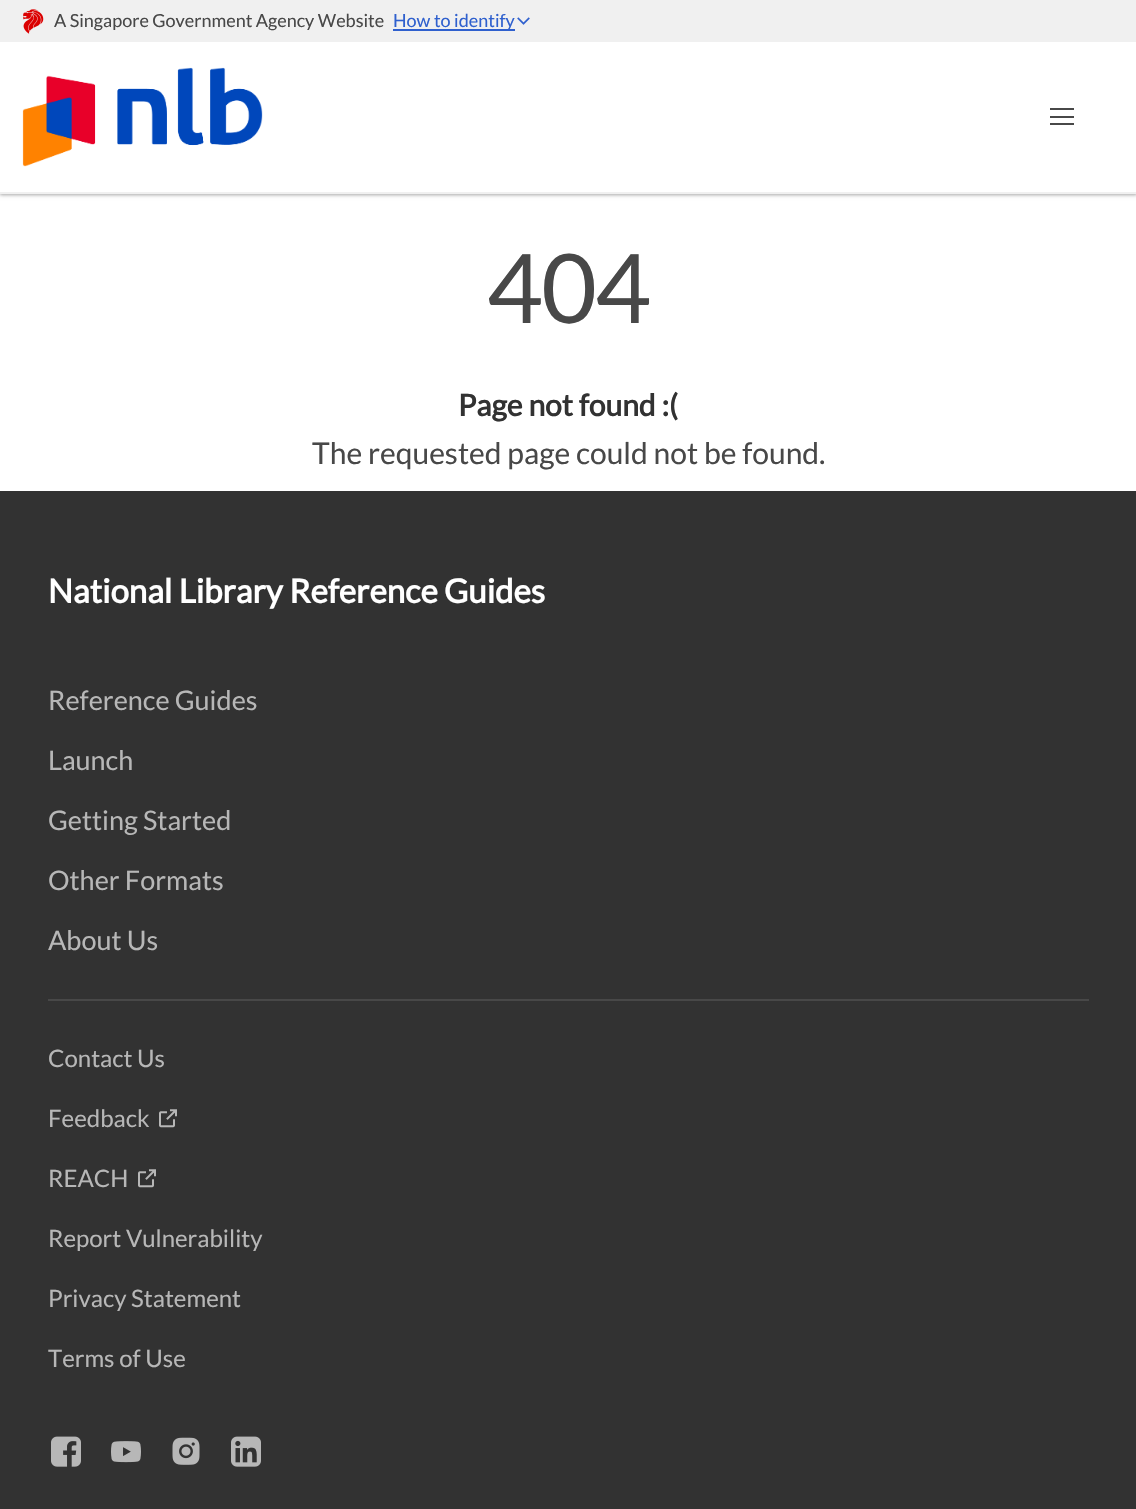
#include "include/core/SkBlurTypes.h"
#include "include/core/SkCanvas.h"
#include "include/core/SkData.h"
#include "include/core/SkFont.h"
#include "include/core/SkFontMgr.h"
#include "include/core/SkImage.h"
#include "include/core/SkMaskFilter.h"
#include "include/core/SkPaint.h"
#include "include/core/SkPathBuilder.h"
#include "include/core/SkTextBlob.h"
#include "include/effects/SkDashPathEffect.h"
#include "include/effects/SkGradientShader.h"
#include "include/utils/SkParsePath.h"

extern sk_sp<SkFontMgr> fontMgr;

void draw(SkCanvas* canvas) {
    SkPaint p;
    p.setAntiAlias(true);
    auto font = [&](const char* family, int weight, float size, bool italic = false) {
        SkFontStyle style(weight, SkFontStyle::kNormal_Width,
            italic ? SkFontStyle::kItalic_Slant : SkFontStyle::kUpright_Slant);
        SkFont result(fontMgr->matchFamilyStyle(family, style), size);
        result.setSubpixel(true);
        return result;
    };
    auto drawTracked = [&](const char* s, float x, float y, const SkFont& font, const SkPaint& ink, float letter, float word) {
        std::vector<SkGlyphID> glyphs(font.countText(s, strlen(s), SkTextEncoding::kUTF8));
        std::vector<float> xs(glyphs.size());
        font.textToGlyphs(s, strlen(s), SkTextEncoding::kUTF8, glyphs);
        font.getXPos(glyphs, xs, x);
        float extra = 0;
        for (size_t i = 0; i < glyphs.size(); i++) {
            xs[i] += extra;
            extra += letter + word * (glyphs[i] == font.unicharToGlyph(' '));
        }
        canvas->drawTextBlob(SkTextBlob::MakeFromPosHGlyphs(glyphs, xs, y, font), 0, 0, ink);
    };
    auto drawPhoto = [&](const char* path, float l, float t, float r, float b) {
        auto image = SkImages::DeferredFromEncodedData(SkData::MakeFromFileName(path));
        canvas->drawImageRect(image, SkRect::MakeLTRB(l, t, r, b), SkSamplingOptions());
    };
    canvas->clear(0xFFFFFFFF);
    p.setColor(0x3D000000);
    p.setMaskFilter(SkMaskFilter::MakeBlur(kNormal_SkBlurStyle, 1.5f));
    canvas->drawRect(SkRect::MakeLTRB(0, -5, 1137, 195), p);
    p.setMaskFilter(nullptr);
    p.setColor(0x1F000000);
    p.setMaskFilter(SkMaskFilter::MakeBlur(kNormal_SkBlurStyle, 2));
    canvas->drawRect(SkRect::MakeLTRB(0, -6, 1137, 195), p);
    p.setMaskFilter(nullptr);
    p.setColor(0xFFF0F0F0);
    canvas->drawRect(SkRect::MakeLTRB(0, 0, 1136, 42), p);
    drawPhoto("media/1.png", 23, 9, 44, 34);
    auto font1 = font("Lato", 400, 18);
    p.setColor(0xFF484848);
    canvas->drawString("A Singapore Government Agency Website", 54, 27, font1, p);
    p.setColor(0xFF2F60CE);
    canvas->drawRect(SkRect::MakeLTRB(393, 29, 515, 31), p);
    canvas->drawString("How to identify", 393, 27, font1, p);
    drawPhoto("media/2.png", 517, 17, 530, 25);
    p.setColor(0xFFFFFFFF);
    canvas->drawRect(SkRect::MakeLTRB(0, 42, 1136, 192), p);
    p.setColor(0xFFF0F0F0);
    canvas->drawRect(SkRect::MakeLTRB(0, 192, 1136, 194), p);
    drawPhoto("media/3.png", 22, 67, 263, 167);
    {
        const struct { float l, t, r, b; SkColor color; } items[] = {
            {1050, 108, 1074, 110, 0xFF484848},
            {1050, 116, 1074, 118, 0xFF484848},
            {1050, 123, 1074, 125, 0xFF484848},
        };
        for (auto [l, t, r, b, color] : items) {
            p.setColor(color);
            canvas->drawRect(SkRect::MakeLTRB(l, t, r, b), p);
        }
    }
    auto font2 = font("Lato", 400, 96);
    drawTracked("404", 487, 323, font2, p, -1.5f, 0);
    auto font3 = font("Lato", 700, 30);
    p.setColor(0xFF323232);
    canvas->drawString("Page not found :(", 458, 416, font3, p);
    auto font4 = font("Lato", 400, 30);
    p.setColor(0xFF484848);
    canvas->drawString("The requested page could not be found.", 312, 464, font4, p);
    p.setColor(0xFF323232);
    canvas->drawRect(SkRect::MakeLTRB(0, 491, 1136, 1509), p);
    auto font5 = font("Lato", 700, 33);
    p.setColor(0xFFFFFFFF);
    canvas->drawString("National Library Reference Guides", 48, 603, font5, p);
    auto font6 = font("Lato", 400, 27);
    p.setColor(0xFFB7B7B7);
    {
        const struct { const char* s; float x, y; } items[] = {
            {"Reference Guides", 48, 710},
            {"Launch", 48, 770},
            {"Getting Started", 48, 830},
            {"Other Formats", 48, 890},
            {"About Us", 48, 950},
        };
        for (auto [s, x, y] : items) {
            canvas->drawString(s, x, y, font6, p);
        }
    }
    p.setColor(0xFF484848);
    canvas->drawRect(SkRect::MakeLTRB(48, 999, 1089, 1001), p);
    auto font7 = font("Lato", 400, 24);
    p.setColor(0xFFB7B7B7);
    canvas->drawString("Contact Us", 48, 1067, font7, p);
    canvas->drawString("Feedback", 48, 1127, font7, p);
    drawPhoto("media/4.png", 159, 1109, 177, 1128);
    canvas->drawString("REACH", 48, 1187, font7, p);
    drawPhoto("media/4.png", 138, 1169, 156, 1188);
    {
        const struct { const char* s; float x, y; } items[] = {
            {"Report Vulnerability", 48, 1247},
            {"Privacy Statement", 48, 1307},
            {"Terms of Use", 48, 1367},
        };
        for (auto [s, x, y] : items) {
            canvas->drawString(s, x, y, font7, p);
        }
    }
    drawPhoto("media/5.png", 51, 1436, 81, 1467);
    drawPhoto("media/6.png", 111, 1441, 141, 1463);
    drawPhoto("media/7.png", 172, 1437, 200, 1465);
    drawPhoto("media/8.png", 231, 1436, 261, 1467);
}
